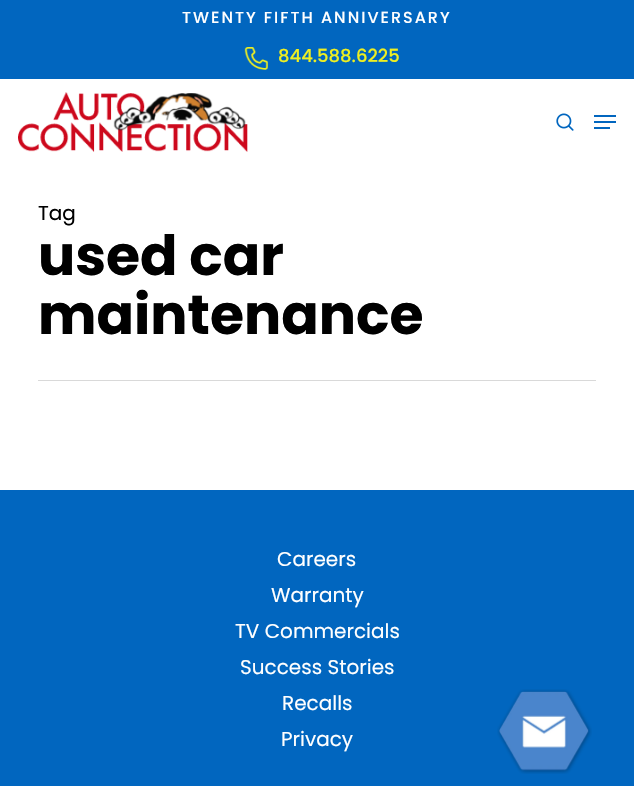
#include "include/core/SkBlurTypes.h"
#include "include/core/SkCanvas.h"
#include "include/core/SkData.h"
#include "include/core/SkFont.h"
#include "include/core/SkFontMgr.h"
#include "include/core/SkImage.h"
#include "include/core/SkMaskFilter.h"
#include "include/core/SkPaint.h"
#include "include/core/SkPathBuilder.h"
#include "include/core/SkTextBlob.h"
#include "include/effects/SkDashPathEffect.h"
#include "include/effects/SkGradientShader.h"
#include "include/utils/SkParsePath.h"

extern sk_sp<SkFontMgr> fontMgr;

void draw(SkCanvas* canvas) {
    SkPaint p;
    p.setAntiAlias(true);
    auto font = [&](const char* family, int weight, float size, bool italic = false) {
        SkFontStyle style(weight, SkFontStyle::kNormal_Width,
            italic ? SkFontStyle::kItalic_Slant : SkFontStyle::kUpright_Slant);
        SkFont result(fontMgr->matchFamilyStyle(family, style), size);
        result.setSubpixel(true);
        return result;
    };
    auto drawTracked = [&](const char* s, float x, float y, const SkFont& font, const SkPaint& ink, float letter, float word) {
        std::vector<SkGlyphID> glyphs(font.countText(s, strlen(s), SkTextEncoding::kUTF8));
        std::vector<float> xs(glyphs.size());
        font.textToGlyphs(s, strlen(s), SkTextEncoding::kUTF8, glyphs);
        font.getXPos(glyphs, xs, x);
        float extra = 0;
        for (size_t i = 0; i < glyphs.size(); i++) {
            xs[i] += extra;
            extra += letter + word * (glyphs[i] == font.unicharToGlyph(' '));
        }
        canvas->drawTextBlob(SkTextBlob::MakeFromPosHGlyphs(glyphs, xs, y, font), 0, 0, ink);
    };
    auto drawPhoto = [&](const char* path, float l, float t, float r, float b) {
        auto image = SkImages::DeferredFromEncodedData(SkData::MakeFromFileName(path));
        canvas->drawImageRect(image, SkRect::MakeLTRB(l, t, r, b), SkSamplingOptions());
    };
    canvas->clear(0xFFFFFFFF);
    p.setColor(0xFF0166BF);
    canvas->drawRect(SkRect::MakeLTRB(0, 0, 634, 79), p);
    auto font1 = font("Poppins", 500, 16);
    p.setColor(0xFFFFFFFF);
    drawTracked("TWENTY FIFTH ANNIVERSARY", 182, 23, font1, p, 2, 0);
    drawPhoto("media/1.png", 244, 47, 268, 70);
    auto font2 = font("Poppins", 500, 18);
    p.setColor(0xFFEEEF21);
    canvas->drawString("844.588.6225", 278, 62, font2, p);
    drawPhoto("media/2.png", 18, 92, 248, 152);
    drawPhoto("media/3.png", 556, 113, 574, 131);
    {
        const struct { float l, t, r, b; SkColor color; } items[] = {
            {594, 115, 616, 117, 0xFF0166BF},
            {594, 127, 610, 129, 0xFF0166BF},
            {594, 121, 616, 123, 0xFF0166BF},
            {38, 380, 596, 381, 0xFFD9D9D9},
        };
        for (auto [l, t, r, b, color] : items) {
            p.setColor(color);
            canvas->drawRect(SkRect::MakeLTRB(l, t, r, b), p);
        }
    }
    auto font3 = font("Poppins", 400, 20);
    p.setColor(0xFF000000);
    canvas->drawString("Tag", 38, 220, font3, p);
    auto font4 = font("Poppins", 700, 55.25f);
    canvas->drawString("used car", 38, 275, font4, p);
    canvas->drawString("maintenance", 38, 334, font4, p);
    p.setColor(0xFF0166BF);
    canvas->drawRect(SkRect::MakeLTRB(0, 490, 634, 786), p);
    p.setColor(0xFFFFFFFF);
    {
        const struct { const char* s; float x, y; } items[] = {
            {"Careers", 277, 566},
            {"Warranty", 271, 602},
            {"TV Commercials", 235, 638},
            {"Success Stories", 240, 674},
            {"Recalls", 282, 710},
            {"Privacy", 281, 746},
        };
        for (auto [s, x, y] : items) {
            canvas->drawString(s, x, y, font3, p);
        }
    }
    drawPhoto("media/4.png", 497, 689, 592, 774);
}
